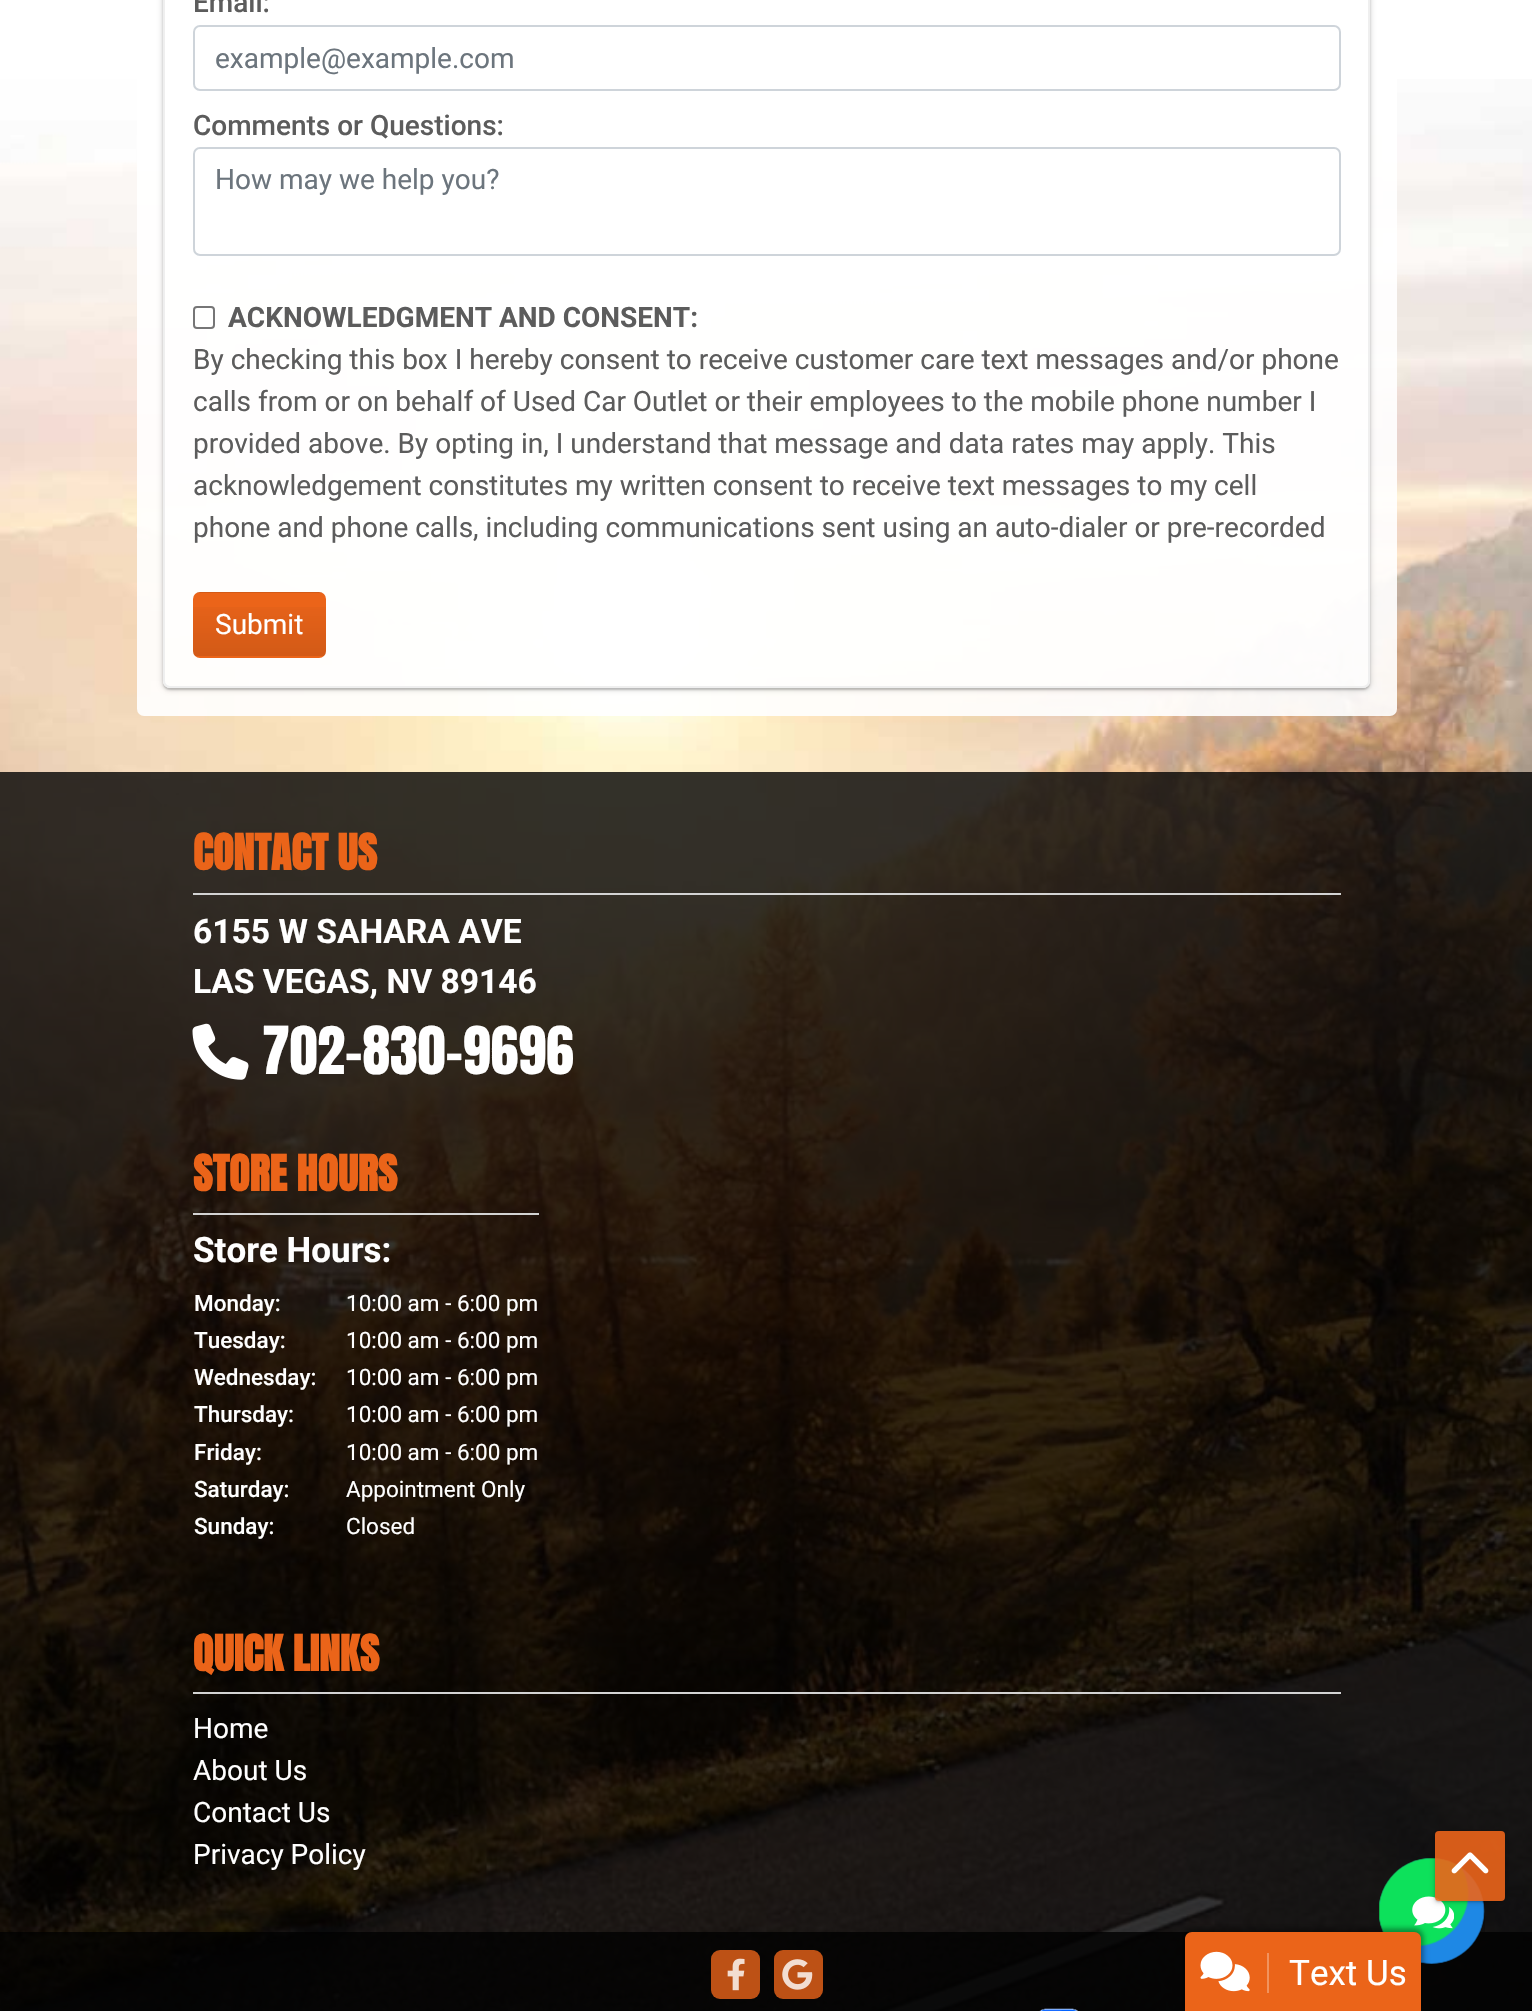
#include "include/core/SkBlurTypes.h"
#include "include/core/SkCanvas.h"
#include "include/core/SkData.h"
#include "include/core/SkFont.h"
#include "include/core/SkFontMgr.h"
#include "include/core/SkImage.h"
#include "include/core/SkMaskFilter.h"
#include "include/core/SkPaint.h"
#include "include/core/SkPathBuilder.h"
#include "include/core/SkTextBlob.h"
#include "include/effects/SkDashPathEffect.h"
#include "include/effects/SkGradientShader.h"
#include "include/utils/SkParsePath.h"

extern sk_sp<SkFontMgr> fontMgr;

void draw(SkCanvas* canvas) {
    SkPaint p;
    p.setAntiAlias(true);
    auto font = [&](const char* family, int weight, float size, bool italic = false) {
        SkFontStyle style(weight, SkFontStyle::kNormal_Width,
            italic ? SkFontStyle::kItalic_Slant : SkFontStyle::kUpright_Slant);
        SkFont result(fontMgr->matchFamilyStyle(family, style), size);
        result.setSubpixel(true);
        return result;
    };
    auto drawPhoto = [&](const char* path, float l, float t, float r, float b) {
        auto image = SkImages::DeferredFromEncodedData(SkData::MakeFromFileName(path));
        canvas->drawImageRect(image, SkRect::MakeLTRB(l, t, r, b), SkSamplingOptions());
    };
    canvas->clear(0xFFFFFFFF);
    drawPhoto("media/1.png", 0, 79, 1532, 2011);
    p.setColor(0xE6FFFFFF);
    canvas->drawRoundRect(SkRect::MakeLTRB(137, -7, 1397, 716), 7, 7, p);
    canvas->save();
    canvas->clipPath(SkPathBuilder(SkPathFillType::kEvenOdd).moveTo(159, 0).lineTo(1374, 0).lineTo(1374, 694).lineTo(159, 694).close().moveTo(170, -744).lineTo(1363, -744).cubicTo(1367, -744, 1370, -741, 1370, -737).lineTo(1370, 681).cubicTo(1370, 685, 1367, 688, 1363, 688).lineTo(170, 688).cubicTo(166, 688, 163, 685, 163, 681).lineTo(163, -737).cubicTo(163, -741, 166, -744, 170, -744).close().detach(), true);
    p.setColor(0x33000000);
    p.setMaskFilter(SkMaskFilter::MakeBlur(kNormal_SkBlurStyle, 1));
    canvas->drawRoundRect(SkRect::MakeLTRB(163, -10, 1370, 690), 7, 7, p);
    p.setMaskFilter(nullptr);
    canvas->restore();
    canvas->save();
    canvas->clipPath(SkPathBuilder(SkPathFillType::kEvenOdd).moveTo(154, 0).lineTo(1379, 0).lineTo(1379, 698).lineTo(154, 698).close().moveTo(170, -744).lineTo(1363, -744).cubicTo(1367, -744, 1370, -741, 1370, -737).lineTo(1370, 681).cubicTo(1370, 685, 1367, 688, 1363, 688).lineTo(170, 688).cubicTo(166, 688, 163, 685, 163, 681).lineTo(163, -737).cubicTo(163, -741, 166, -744, 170, -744).close().detach(), true);
    p.setColor(0x1A000000);
    p.setMaskFilter(SkMaskFilter::MakeBlur(kNormal_SkBlurStyle, 2));
    canvas->drawRoundRect(SkRect::MakeLTRB(161, -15, 1372, 691), 9, 9, p);
    p.setMaskFilter(nullptr);
    canvas->restore();
    p.setColor(0x99FFFFFF);
    canvas->drawRoundRect(SkRect::MakeLTRB(163, -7, 1370, 688), 7, 7, p);
    p.setStyle(SkPaint::kStroke_Style);
    p.setStrokeWidth(2);
    p.setColor(0xCCEBEBEB);
    canvas->drawRoundRect(SkRect::MakeLTRB(164, -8, 1369, 687), 6, 6, p);
    auto font1 = font("Roboto", 500, 28);
    p.setStyle(SkPaint::kFill_Style);
    p.setColor(0xFF5C5C5C);
    canvas->drawString("Email:", 193, 12, font1, p);
    p.setStyle(SkPaint::kStroke_Style);
    p.setColor(0xFFCED4DA);
    canvas->drawRoundRect(SkRect::MakeLTRB(194, 26, 1340, 90), 6, 6, p);
    auto font2 = font("Roboto", 400, 28);
    p.setStyle(SkPaint::kFill_Style);
    p.setColor(0xFF6C757D);
    canvas->drawString("example@example.com", 215, 68, font2, p);
    p.setColor(0xFF5C5C5C);
    canvas->drawString("Comments or Questions:", 193, 135, font1, p);
    p.setStyle(SkPaint::kStroke_Style);
    p.setColor(0xFFCED4DA);
    canvas->drawRoundRect(SkRect::MakeLTRB(194, 148, 1340, 255), 6, 6, p);
    p.setStyle(SkPaint::kFill_Style);
    p.setColor(0xFF6C757D);
    canvas->drawString("How may we help you?", 215, 189, font2, p);
    p.setStyle(SkPaint::kStroke_Style);
    p.setColor(0xFF767676);
    canvas->drawRoundRect(SkRect::MakeLTRB(194, 307, 214, 328), 3, 3, p);
    auto font3 = font("Roboto", 700, 28);
    p.setStyle(SkPaint::kFill_Style);
    p.setColor(0xFF5C5C5C);
    canvas->drawString("ACKNOWLEDGMENT AND CONSENT:", 228, 327, font3, p);
    {
        const struct { const char* s; float x, y; } items[] = {
            {"By checking this box I hereby consent to receive customer care text messages and/or phone", 193, 369},
            {"calls from or on behalf of Used Car Outlet or their employees to the mobile phone number I", 193, 411},
            {"provided above. By opting in, I understand that message and data rates may apply. This", 193, 453},
            {"acknowledgement constitutes my written consent to receive text messages to my cell", 193, 495},
            {"phone and phone calls, including communications sent using an auto-dialer or pre-recorded", 193, 537},
        };
        for (auto [s, x, y] : items) {
            canvas->drawString(s, x, y, font2, p);
        }
    }
    p.setColor(0xFFEB6419);
    canvas->drawRoundRect(SkRect::MakeLTRB(193, 592, 326, 658), 7, 7, p);
    canvas->save();
    canvas->clipPath(SkPathBuilder().moveTo(200, 592).lineTo(319, 592).cubicTo(323, 592, 326, 595, 326, 599).lineTo(326, 651).cubicTo(326, 655, 323, 658, 319, 658).lineTo(200, 658).cubicTo(196, 658, 193, 655, 193, 651).lineTo(193, 599).cubicTo(193, 595, 196, 592, 200, 592).close().detach(), true);
    {
        const SkColor colors[] = {0x00000000, 0x1A000000};
        const float stops[] = {0, 1};
        const SkPoint ends[] = {{259, 530}, {259, 593}};
        p.setShader(SkGradientShader::MakeLinear(ends, colors, stops, 2, SkTileMode::kClamp));
        p.setAlpha(255);
    }
    canvas->drawRect(SkRect::MakeLTRB(193, 592, 326, 593), p);
    {
        const SkColor colors[] = {0x00000000, 0x1A000000};
        const float stops[] = {0, 1};
        const SkPoint ends[] = {{259, 593}, {259, 656}};
        p.setShader(SkGradientShader::MakeLinear(ends, colors, stops, 2, SkTileMode::kClamp));
        p.setAlpha(255);
    }
    canvas->drawRect(SkRect::MakeLTRB(193, 607, 326, 656), p);
    canvas->restore();
    p.setShader(nullptr);
    p.setColor(0xFFFFFFFF);
    canvas->drawString("Submit", 215, 634, font2, p);
    p.setColor(0xCC000000);
    canvas->drawRect(SkRect::MakeLTRB(0, 772, 1532, 2011), p);
    p.setColor(0xFFD3D3D3);
    canvas->drawRect(SkRect::MakeLTRB(193, 893, 1341, 895), p);
    auto font4 = font("Anton", 700, 42);
    p.setColor(0xFFEB6419);
    canvas->drawString("CONTACT US", 193, 870, font4, p);
    auto font5 = font("Roboto", 700, 33.6f);
    p.setColor(0xFFFFFFFF);
    canvas->drawString("6155 W SAHARA AVE", 193, 943, font5, p);
    canvas->drawString("LAS VEGAS, NV 89146", 193, 993, font5, p);
    drawPhoto("media/2.png", 192, 1023, 249, 1080);
    auto font6 = font("Anton", 400, 56);
    canvas->drawString("702-830-9696", 262, 1074, font6, p);
    p.setColor(0xFFD3D3D3);
    canvas->drawRect(SkRect::MakeLTRB(193, 1213, 539, 1215), p);
    p.setColor(0xFFEB6419);
    canvas->drawString("STORE HOURS", 193, 1191, font4, p);
    auto font7 = font("Roboto", 700, 35);
    p.setColor(0xFFFFFFFF);
    canvas->drawString("Store Hours:", 193, 1262, font7, p);
    auto font8 = font("Roboto", 500, 22.5f);
    canvas->drawString("Monday:", 194, 1311, font8, p);
    auto font9 = font("Roboto", 400, 22.5f);
    canvas->drawString("10:00 am - 6:00 pm", 346, 1311, font9, p);
    canvas->drawString("Tuesday:", 194, 1348, font8, p);
    canvas->drawString("10:00 am - 6:00 pm", 346, 1348, font9, p);
    canvas->drawString("Wednesday:", 194, 1385, font8, p);
    canvas->drawString("10:00 am - 6:00 pm", 346, 1385, font9, p);
    canvas->drawString("Thursday:", 194, 1422, font8, p);
    canvas->drawString("10:00 am - 6:00 pm", 346, 1422, font9, p);
    canvas->drawString("Friday:", 194, 1460, font8, p);
    canvas->drawString("10:00 am - 6:00 pm", 346, 1460, font9, p);
    canvas->drawString("Saturday:", 194, 1497, font8, p);
    canvas->drawString("Appointment Only", 346, 1497, font9, p);
    canvas->drawString("Sunday:", 194, 1534, font8, p);
    canvas->drawString("Closed", 346, 1534, font9, p);
    p.setColor(0xFFD3D3D3);
    canvas->drawRect(SkRect::MakeLTRB(193, 1692, 1341, 1694), p);
    p.setColor(0xFFEB6419);
    canvas->drawString("QUICK LINKS", 193, 1671, font4, p);
    p.setColor(0xFFFFFFFF);
    {
        const struct { const char* s; float x, y; } items[] = {
            {"Home", 193, 1738},
            {"About Us", 193, 1780},
            {"Contact Us", 193, 1822},
            {"Privacy Policy", 193, 1864},
        };
        for (auto [s, x, y] : items) {
            canvas->drawString(s, x, y, font2, p);
        }
    }
    p.setColor(0xCC000000);
    canvas->drawRect(SkRect::MakeLTRB(0, 1932, 1532, 2011), p);
    p.setColor(0xFFBD5115);
    canvas->drawRoundRect(SkRect::MakeLTRB(711, 1950, 760, 1999), 9, 9, p);
    drawPhoto("media/3.png", 727, 1958, 745, 1991);
    canvas->drawRoundRect(SkRect::MakeLTRB(774, 1950, 823, 1999), 9, 9, p);
    drawPhoto("media/4.png", 782, 1959, 813, 1990);
    drawPhoto("media/5.png", 1039, 2008, 1078, 2011);
    drawPhoto("media/7.png", 1379, 1858, 1485, 1964);
    drawPhoto("media/8.png", 1379, 1858, 1485, 1964);
    drawPhoto("media/9.png", 1412, 1896, 1454, 1929);
    canvas->save();
    canvas->clipPath(SkPathBuilder(SkPathFillType::kEvenOdd).moveTo(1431, 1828).lineTo(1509, 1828).lineTo(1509, 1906).lineTo(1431, 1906).close().moveTo(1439, 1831).lineTo(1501, 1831).cubicTo(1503, 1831, 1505, 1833, 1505, 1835).lineTo(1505, 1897).cubicTo(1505, 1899, 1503, 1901, 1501, 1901).lineTo(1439, 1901).cubicTo(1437, 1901, 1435, 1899, 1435, 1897).lineTo(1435, 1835).cubicTo(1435, 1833, 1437, 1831, 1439, 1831).close().detach(), true);
    p.setColor(0x33000000);
    p.setMaskFilter(SkMaskFilter::MakeBlur(kNormal_SkBlurStyle, 1));
    canvas->drawRoundRect(SkRect::MakeLTRB(1435, 1832, 1505, 1902), 4, 4, p);
    p.setMaskFilter(nullptr);
    canvas->restore();
    canvas->save();
    canvas->clipPath(SkPathBuilder(SkPathFillType::kEvenOdd).moveTo(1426, 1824).lineTo(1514, 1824).lineTo(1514, 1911).lineTo(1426, 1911).close().moveTo(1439, 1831).lineTo(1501, 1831).cubicTo(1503, 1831, 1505, 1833, 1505, 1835).lineTo(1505, 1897).cubicTo(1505, 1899, 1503, 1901, 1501, 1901).lineTo(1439, 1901).cubicTo(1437, 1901, 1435, 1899, 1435, 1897).lineTo(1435, 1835).cubicTo(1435, 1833, 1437, 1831, 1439, 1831).close().detach(), true);
    p.setColor(0x1A000000);
    p.setMaskFilter(SkMaskFilter::MakeBlur(kNormal_SkBlurStyle, 2));
    canvas->drawRoundRect(SkRect::MakeLTRB(1433, 1831, 1507, 1904), 5, 5, p);
    p.setMaskFilter(nullptr);
    canvas->restore();
    p.setColor(0xE6EB6419);
    canvas->drawRoundRect(SkRect::MakeLTRB(1435, 1831, 1505, 1901), 4, 4, p);
    canvas->save();
    canvas->clipPath(SkPathBuilder().moveTo(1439, 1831).lineTo(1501, 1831).cubicTo(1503, 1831, 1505, 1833, 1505, 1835).lineTo(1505, 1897).cubicTo(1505, 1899, 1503, 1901, 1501, 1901).lineTo(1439, 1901).cubicTo(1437, 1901, 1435, 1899, 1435, 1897).lineTo(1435, 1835).cubicTo(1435, 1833, 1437, 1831, 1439, 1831).close().detach(), true);
    canvas->clipPath(SkPathBuilder(SkPathFillType::kEvenOdd).moveTo(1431, 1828).lineTo(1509, 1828).lineTo(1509, 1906).lineTo(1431, 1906).close().moveTo(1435, 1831).lineTo(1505, 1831).lineTo(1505, 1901).lineTo(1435, 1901).close().detach(), true);
    p.setColor(0x33000000);
    p.setMaskFilter(SkMaskFilter::MakeBlur(kNormal_SkBlurStyle, 1));
    canvas->drawRect(SkRect::MakeLTRB(1435, 1832, 1505, 1902), p);
    p.setMaskFilter(nullptr);
    canvas->restore();
    canvas->save();
    canvas->clipPath(SkPathBuilder().moveTo(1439, 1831).lineTo(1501, 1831).cubicTo(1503, 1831, 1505, 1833, 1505, 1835).lineTo(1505, 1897).cubicTo(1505, 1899, 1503, 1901, 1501, 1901).lineTo(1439, 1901).cubicTo(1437, 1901, 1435, 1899, 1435, 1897).lineTo(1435, 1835).cubicTo(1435, 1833, 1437, 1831, 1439, 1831).close().detach(), true);
    canvas->clipPath(SkPathBuilder(SkPathFillType::kEvenOdd).moveTo(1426, 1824).lineTo(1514, 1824).lineTo(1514, 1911).lineTo(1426, 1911).close().moveTo(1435, 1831).lineTo(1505, 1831).lineTo(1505, 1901).lineTo(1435, 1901).close().detach(), true);
    p.setColor(0x1A000000);
    p.setMaskFilter(SkMaskFilter::MakeBlur(kNormal_SkBlurStyle, 2));
    canvas->drawRect(SkRect::MakeLTRB(1433, 1831, 1507, 1904), p);
    p.setMaskFilter(nullptr);
    canvas->restore();
    drawPhoto("media/6.png", 1451, 1852, 1489, 1874);
    p.setColor(0x40000000);
    p.setMaskFilter(SkMaskFilter::MakeBlur(kNormal_SkBlurStyle, 2));
    canvas->drawRoundRect(SkRect::MakeLTRB(1183, 1929, 1423, 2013), 9, 9, p);
    p.setMaskFilter(nullptr);
    p.setColor(0x26000000);
    p.setMaskFilter(SkMaskFilter::MakeBlur(kNormal_SkBlurStyle, 2.5f));
    canvas->drawRoundRect(SkRect::MakeLTRB(1181, 1927, 1425, 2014), 11, 11, p);
    p.setMaskFilter(nullptr);
    p.setColor(0xFFEB6419);
    canvas->drawPath(SkPathBuilder().moveTo(1192, 1932).lineTo(1414, 1932).cubicTo(1418, 1932, 1421, 1935, 1421, 1939).lineTo(1421, 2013).lineTo(1185, 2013).lineTo(1185, 1939).cubicTo(1185, 1935, 1188, 1932, 1192, 1932).close().detach(), p);
    p.setColor(0xFFF1935E);
    canvas->drawRect(SkRect::MakeLTRB(1267, 1953, 1269, 1993), p);
    drawPhoto("media/10.png", 1200, 1951, 1250, 1992);
    auto font10 = font("Roboto", 400, 35);
    p.setColor(0xFFFFFFFF);
    canvas->drawString("Text Us", 1289, 1985, font10, p);
}
